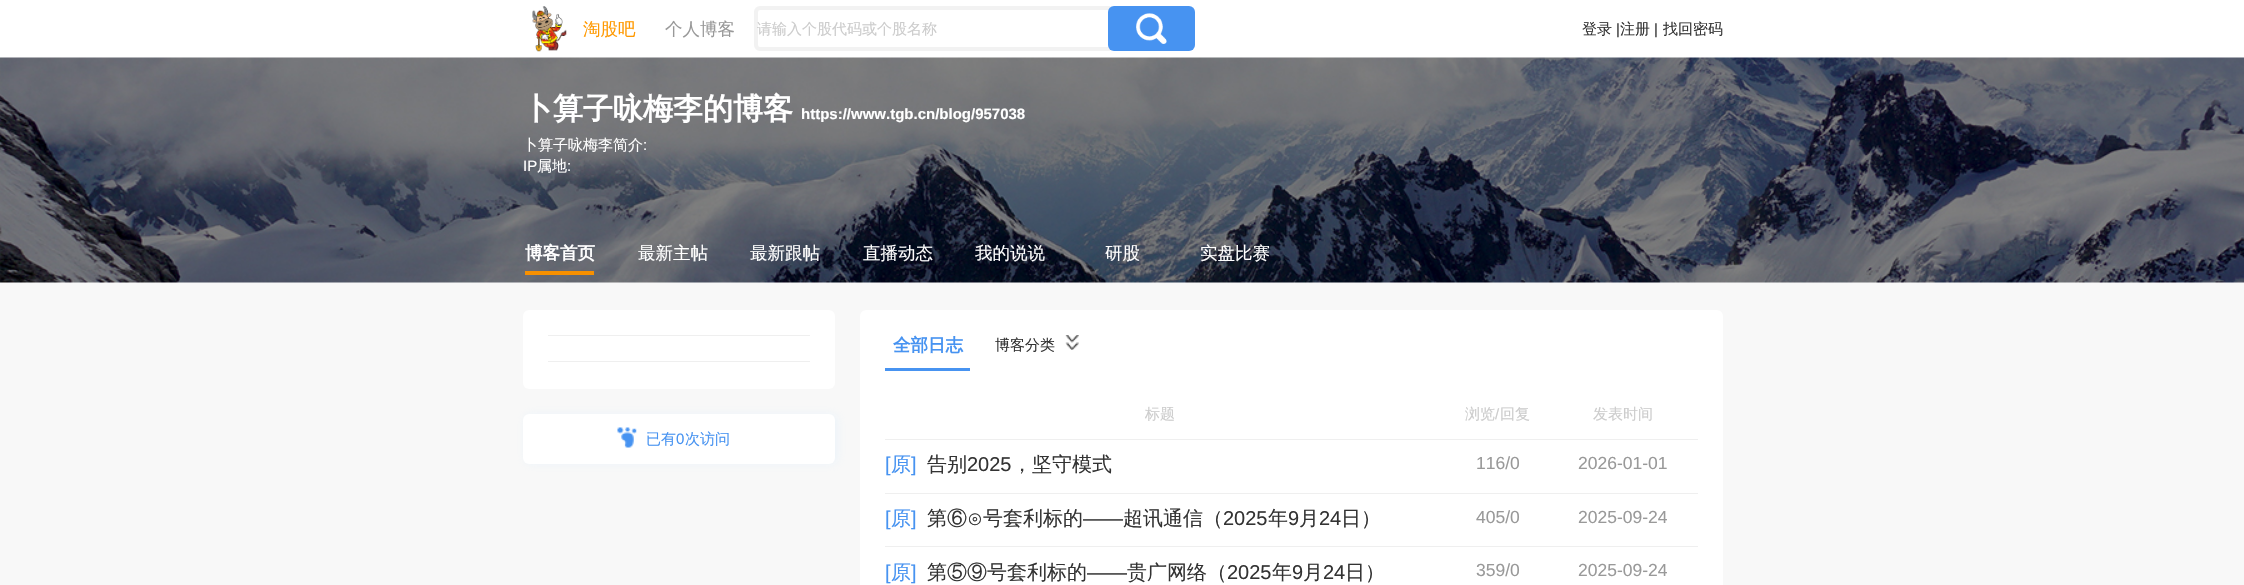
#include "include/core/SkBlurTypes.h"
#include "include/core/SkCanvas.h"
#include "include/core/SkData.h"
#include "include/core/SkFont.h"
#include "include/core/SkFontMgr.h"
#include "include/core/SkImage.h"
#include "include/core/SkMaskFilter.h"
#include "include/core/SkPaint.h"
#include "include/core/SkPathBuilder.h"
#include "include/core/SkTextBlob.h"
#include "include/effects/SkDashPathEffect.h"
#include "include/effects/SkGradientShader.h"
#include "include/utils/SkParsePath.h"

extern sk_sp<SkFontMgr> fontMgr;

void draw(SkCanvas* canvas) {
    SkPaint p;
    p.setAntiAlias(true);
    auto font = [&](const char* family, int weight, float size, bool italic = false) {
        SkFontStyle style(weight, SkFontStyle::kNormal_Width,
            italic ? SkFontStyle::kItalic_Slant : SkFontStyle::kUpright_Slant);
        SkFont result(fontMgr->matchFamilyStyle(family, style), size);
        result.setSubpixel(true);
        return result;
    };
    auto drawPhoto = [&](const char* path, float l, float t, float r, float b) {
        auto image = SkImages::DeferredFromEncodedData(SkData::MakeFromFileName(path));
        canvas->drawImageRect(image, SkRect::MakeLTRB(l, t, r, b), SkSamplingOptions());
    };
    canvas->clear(0xFFF8F8F8);
    p.setColor(0xFFFFFFFF);
    canvas->drawRect(SkRect::MakeLTRB(0, 0, 2244, 58), p);
    drawPhoto("media/1.png", 532, 6, 567, 52);
    auto font1 = font("WenQuanYi Zen Hei", 500, 17.5f);
    p.setColor(0xFFFF9900);
    canvas->drawString("淘股吧", 583, 35, font1, p);
    p.setColor(0xFF999999);
    canvas->drawString("个人博客", 665, 35, font1, p);
    p.setStyle(SkPaint::kStroke_Style);
    p.setStrokeWidth(4);
    p.setColor(0xFFF2F2F2);
    canvas->drawRoundRect(SkRect::MakeLTRB(756, 8, 1113, 49), 4, 4, p);
    auto font2 = font("WenQuanYi Zen Hei", 500, 15);
    p.setStyle(SkPaint::kFill_Style);
    p.setColor(0xFFCCCCCC);
    canvas->drawString("请输入个股代码或个股名称", 757, 34, font2, p);
    p.setColor(0xFF4793F1);
    canvas->drawRoundRect(SkRect::MakeLTRB(1108, 6, 1195, 51), 6, 6, p);
    drawPhoto("media/2.png", 1136, 13, 1167, 44);
    p.setColor(0xFF333333);
    canvas->drawString("登录", 1582, 34, font2, p);
    auto font3 = font("Liberation Sans", 400, 15);
    canvas->drawString("|", 1616, 34, font3, p);
    canvas->drawString("注册", 1620, 34, font2, p);
    canvas->drawString("|", 1654, 34, font3, p);
    canvas->drawString("找回密码", 1663, 34, font2, p);
    drawPhoto("media/3.png", 0, 57, 2244, 283);
    auto font4 = font("WenQuanYi Zen Hei", 700, 30);
    p.setColor(0xFFFFFFFF);
    canvas->drawString("卜算子咏梅李的博客", 523, 119, font4, p);
    auto font5 = font("Liberation Sans", 700, 15);
    canvas->drawString("https://www.tgb.cn/blog/957038", 801, 119, font5, p);
    canvas->drawString("卜算子咏梅李简介", 523, 150, font2, p);
    canvas->drawString(":", 643, 150, font3, p);
    canvas->drawString("IP", 523, 171, font3, p);
    canvas->drawString("属地", 537, 171, font2, p);
    canvas->drawString(":", 567, 171, font3, p);
    auto font6 = font("WenQuanYi Zen Hei", 700, 17.5f);
    canvas->drawString("博客首页", 525, 259, font6, p);
    p.setColor(0xFFF79000);
    canvas->drawRect(SkRect::MakeLTRB(525, 271, 594, 275), p);
    p.setColor(0xFFFFFFFF);
    {
        const struct { const char* s; float x, y; } items[] = {
            {"最新主帖", 638, 259},
            {"最新跟帖", 750, 259},
            {"直播动态", 863, 259},
            {"我的说说", 975, 259},
            {"研股", 1105, 259},
            {"实盘比赛", 1200, 259},
        };
        for (auto [s, x, y] : items) {
            canvas->drawString(s, x, y, font1, p);
        }
    }
    canvas->drawRoundRect(SkRect::MakeLTRB(523, 310, 835, 389), 6, 6, p);
    p.setColor(0xFFEFEFEF);
    canvas->drawRect(SkRect::MakeLTRB(548, 335, 810, 336), p);
    canvas->drawRect(SkRect::MakeLTRB(548, 361, 810, 362), p);
    p.setColor(0x3DCAE5FF);
    p.setMaskFilter(SkMaskFilter::MakeBlur(kNormal_SkBlurStyle, 4));
    canvas->drawRoundRect(SkRect::MakeLTRB(525, 414, 838, 464), 6, 6, p);
    p.setMaskFilter(nullptr);
    p.setColor(0xFFFFFFFF);
    canvas->drawRoundRect(SkRect::MakeLTRB(523, 414, 835, 464), 6, 6, p);
    drawPhoto("media/4.png", 617, 427, 637, 448);
    p.setColor(0xFF4793F1);
    canvas->drawString("已有", 646, 444, font2, p);
    canvas->drawString("0", 676, 444, font3, p);
    canvas->drawString("次访问", 685, 444, font2, p);
    p.setColor(0xFFFFFFFF);
    canvas->drawRoundRect(SkRect::MakeLTRB(860, 310, 1723, 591), 6, 6, p);
    p.setColor(0xFF4793F1);
    canvas->drawRect(SkRect::MakeLTRB(885, 368, 970, 371), p);
    canvas->drawString("全部日志", 893, 351, font6, p);
    p.setColor(0xFF333333);
    canvas->drawString("博客分类", 995, 350, font2, p);
    drawPhoto("media/5.png", 1065, 335, 1079, 350);
    p.setColor(0xFFEFEFEF);
    canvas->drawRect(SkRect::MakeLTRB(885, 439, 1698, 440), p);
    p.setColor(0xFFCCCCCC);
    canvas->drawString("标题", 1145, 419, font2, p);
    canvas->drawString("浏览", 1465, 419, font2, p);
    canvas->drawString("/", 1495, 419, font3, p);
    canvas->drawString("回复", 1500, 419, font2, p);
    canvas->drawString("发表时间", 1593, 419, font2, p);
    p.setColor(0xFFEFEFEF);
    canvas->drawRect(SkRect::MakeLTRB(885, 493, 1698, 494), p);
    auto font7 = font("Liberation Sans", 400, 20);
    p.setColor(0xFF4793F1);
    canvas->drawString("[", 885, 471, font7, p);
    auto font8 = font("WenQuanYi Zen Hei", 500, 20);
    canvas->drawString("原", 891, 471, font8, p);
    canvas->drawString("]", 911, 471, font7, p);
    p.setColor(0xFF333333);
    canvas->drawString("告别", 927, 471, font8, p);
    canvas->drawString("2025", 967, 471, font7, p);
    canvas->drawString("，坚守模式", 1012, 471, font8, p);
    auto font9 = font("Liberation Sans", 400, 17.5f);
    p.setColor(0xFF999999);
    canvas->drawString("116/0", 1476, 469, font9, p);
    canvas->drawString("2026-01-01", 1578, 469, font9, p);
    p.setColor(0xFFEFEFEF);
    canvas->drawRect(SkRect::MakeLTRB(885, 546, 1698, 547), p);
    p.setColor(0xFF4793F1);
    canvas->drawString("[", 885, 525, font7, p);
    canvas->drawString("原", 891, 525, font8, p);
    canvas->drawString("]", 911, 525, font7, p);
    p.setColor(0xFF333333);
    canvas->drawString("第⑥⊙号套利标的", 927, 525, font8, p);
    canvas->drawString("——", 1083, 525, font7, p);
    canvas->drawString("超讯通信（", 1123, 525, font8, p);
    canvas->drawString("2025", 1223, 525, font7, p);
    canvas->drawString("年", 1268, 525, font8, p);
    canvas->drawString("9", 1288, 525, font7, p);
    canvas->drawString("月", 1299, 525, font8, p);
    canvas->drawString("24", 1319, 525, font7, p);
    canvas->drawString("日）", 1341, 525, font8, p);
    p.setColor(0xFF999999);
    canvas->drawString("405/0", 1476, 523, font9, p);
    canvas->drawString("2025-09-24", 1578, 523, font9, p);
    p.setColor(0xFF4793F1);
    canvas->drawString("[", 885, 579, font7, p);
    canvas->drawString("原", 891, 579, font8, p);
    canvas->drawString("]", 911, 579, font7, p);
    p.setColor(0xFF333333);
    canvas->drawString("第⑤⑨号套利标的", 927, 579, font8, p);
    canvas->drawString("——", 1087, 579, font7, p);
    canvas->drawString("贵广网络（", 1127, 579, font8, p);
    canvas->drawString("2025", 1227, 579, font7, p);
    canvas->drawString("年", 1272, 579, font8, p);
    canvas->drawString("9", 1292, 579, font7, p);
    canvas->drawString("月", 1303, 579, font8, p);
    canvas->drawString("24", 1323, 579, font7, p);
    canvas->drawString("日）", 1345, 579, font8, p);
    p.setColor(0xFF999999);
    canvas->drawString("359/0", 1476, 576, font9, p);
    canvas->drawString("2025-09-24", 1578, 576, font9, p);
}
